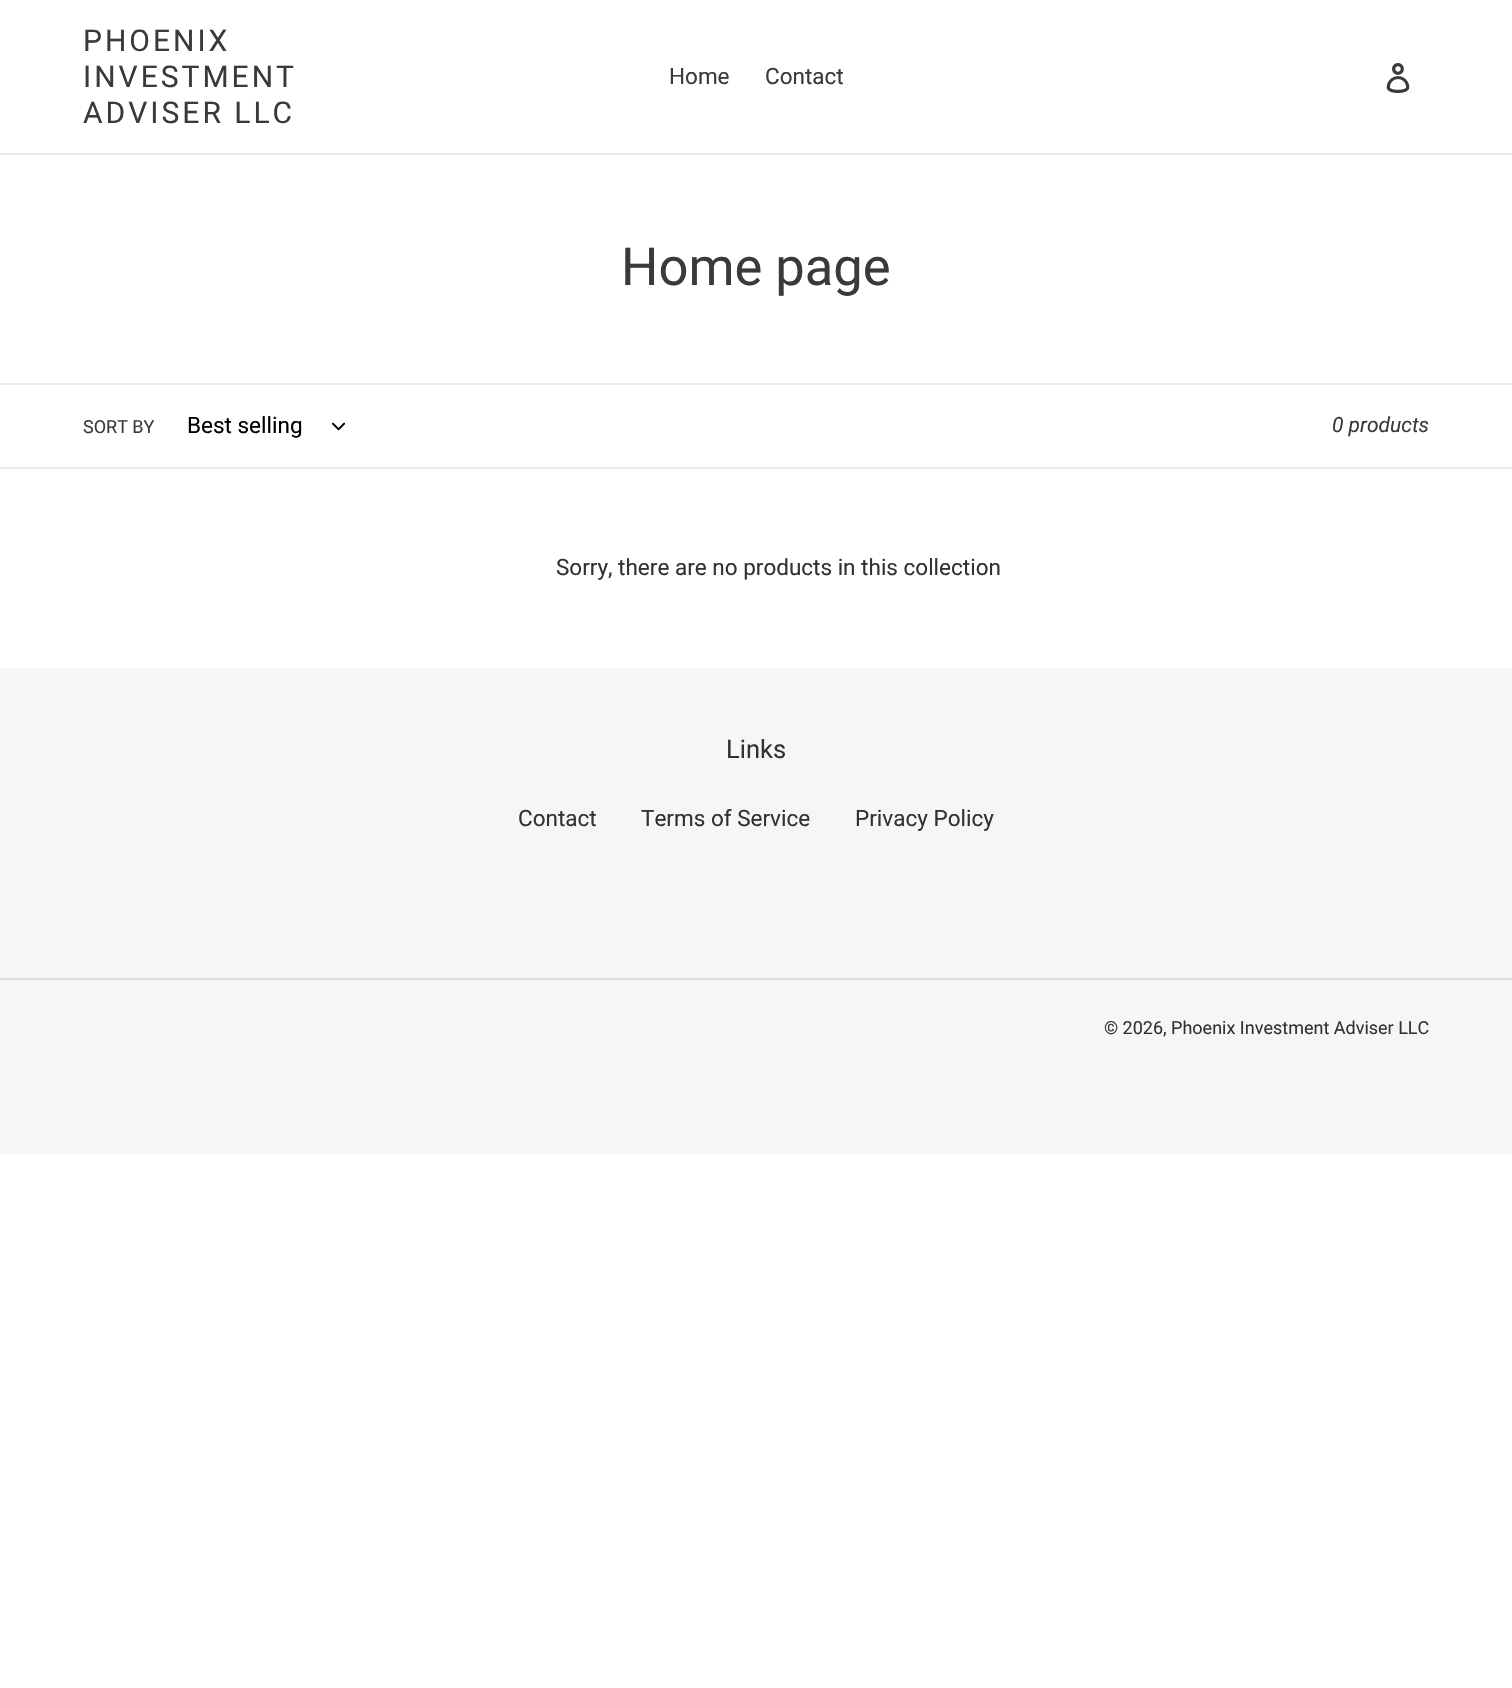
#include "include/core/SkBlurTypes.h"
#include "include/core/SkCanvas.h"
#include "include/core/SkData.h"
#include "include/core/SkFont.h"
#include "include/core/SkFontMgr.h"
#include "include/core/SkImage.h"
#include "include/core/SkMaskFilter.h"
#include "include/core/SkPaint.h"
#include "include/core/SkPathBuilder.h"
#include "include/core/SkTextBlob.h"
#include "include/effects/SkDashPathEffect.h"
#include "include/effects/SkGradientShader.h"
#include "include/utils/SkParsePath.h"

extern sk_sp<SkFontMgr> fontMgr;

void draw(SkCanvas* canvas) {
    SkPaint p;
    p.setAntiAlias(true);
    auto font = [&](const char* family, int weight, float size, bool italic = false) {
        SkFontStyle style(weight, SkFontStyle::kNormal_Width,
            italic ? SkFontStyle::kItalic_Slant : SkFontStyle::kUpright_Slant);
        SkFont result(fontMgr->matchFamilyStyle(family, style), size);
        result.setSubpixel(true);
        return result;
    };
    auto drawTracked = [&](const char* s, float x, float y, const SkFont& font, const SkPaint& ink, float letter, float word) {
        std::vector<SkGlyphID> glyphs(font.countText(s, strlen(s), SkTextEncoding::kUTF8));
        std::vector<float> xs(glyphs.size());
        font.textToGlyphs(s, strlen(s), SkTextEncoding::kUTF8, glyphs);
        font.getXPos(glyphs, xs, x);
        float extra = 0;
        for (size_t i = 0; i < glyphs.size(); i++) {
            xs[i] += extra;
            extra += letter + word * (glyphs[i] == font.unicharToGlyph(' '));
        }
        canvas->drawTextBlob(SkTextBlob::MakeFromPosHGlyphs(glyphs, xs, y, font), 0, 0, ink);
    };
    auto drawPhoto = [&](const char* path, float l, float t, float r, float b) {
        auto image = SkImages::DeferredFromEncodedData(SkData::MakeFromFileName(path));
        canvas->drawImageRect(image, SkRect::MakeLTRB(l, t, r, b), SkSamplingOptions());
    };
    canvas->clear(0xFFFFFFFF);
    p.setColor(0xFFEBEBEB);
    canvas->drawRect(SkRect::MakeLTRB(0, 153, 1512, 155), p);
    auto font1 = font("Roboto", 400, 30);
    p.setColor(0xFF3A3A3A);
    {
        const struct { const char* s; float x, y; } items[] = {
            {"PHOENIX", 83, 51},
            {"INVESTMENT", 83, 87},
            {"ADVISER LLC", 83, 123},
        };
        for (auto [s, x, y] : items) {
            drawTracked(s, x, y, font1, p, 3, 0);
        }
    }
    auto font2 = font("Roboto", 400, 22.5f);
    canvas->drawString("Home", 669, 84, font2, p);
    canvas->drawString("Contact", 765, 84, font2, p);
    drawPhoto("media/1.png", 1386, 63, 1410, 93);
    auto font3 = font("Roboto", 400, 52.5f);
    canvas->drawString("Home page", 621, 285, font3, p);
    p.setColor(0xFFEBEBEB);
    canvas->drawRect(SkRect::MakeLTRB(0, 383, 1512, 385), p);
    canvas->drawRect(SkRect::MakeLTRB(0, 467, 1512, 469), p);
    auto font4 = font("Roboto", 400, 18);
    p.setColor(0xFF3A3A3A);
    canvas->drawString("SORT BY", 83, 433, font4, p);
    p.setColor(0xFF000000);
    canvas->drawString("Best selling", 187, 433, font2, p);
    drawPhoto("media/2.png", 332, 422, 345, 431);
    auto font5 = font("Roboto", 400, 21, true);
    p.setColor(0xFF3A3A3A);
    canvas->drawString("0 products", 1332, 432, font5, p);
    p.setColor(0xFF333232);
    canvas->drawString("Sorry, there are no products in this collection", 556, 575, font2, p);
    p.setColor(0xFFF6F6F6);
    canvas->drawRect(SkRect::MakeLTRB(0, 668, 1512, 1154), p);
    auto font6 = font("Roboto", 400, 25.5f);
    p.setColor(0xFF333232);
    canvas->drawString("Links", 726, 758, font6, p);
    {
        const struct { const char* s; float x, y; } items[] = {
            {"Contact", 518, 826},
            {"Terms of Service", 641, 826},
            {"Privacy Policy", 855, 826},
        };
        for (auto [s, x, y] : items) {
            canvas->drawString(s, x, y, font2, p);
        }
    }
    p.setColor(0xFFDDDDDD);
    canvas->drawRect(SkRect::MakeLTRB(0, 978, 1512, 980), p);
    p.setColor(0xFF333232);
    canvas->drawString("© 2026, Phoenix Investment Adviser LLC", 1104, 1034, font4, p);
}
